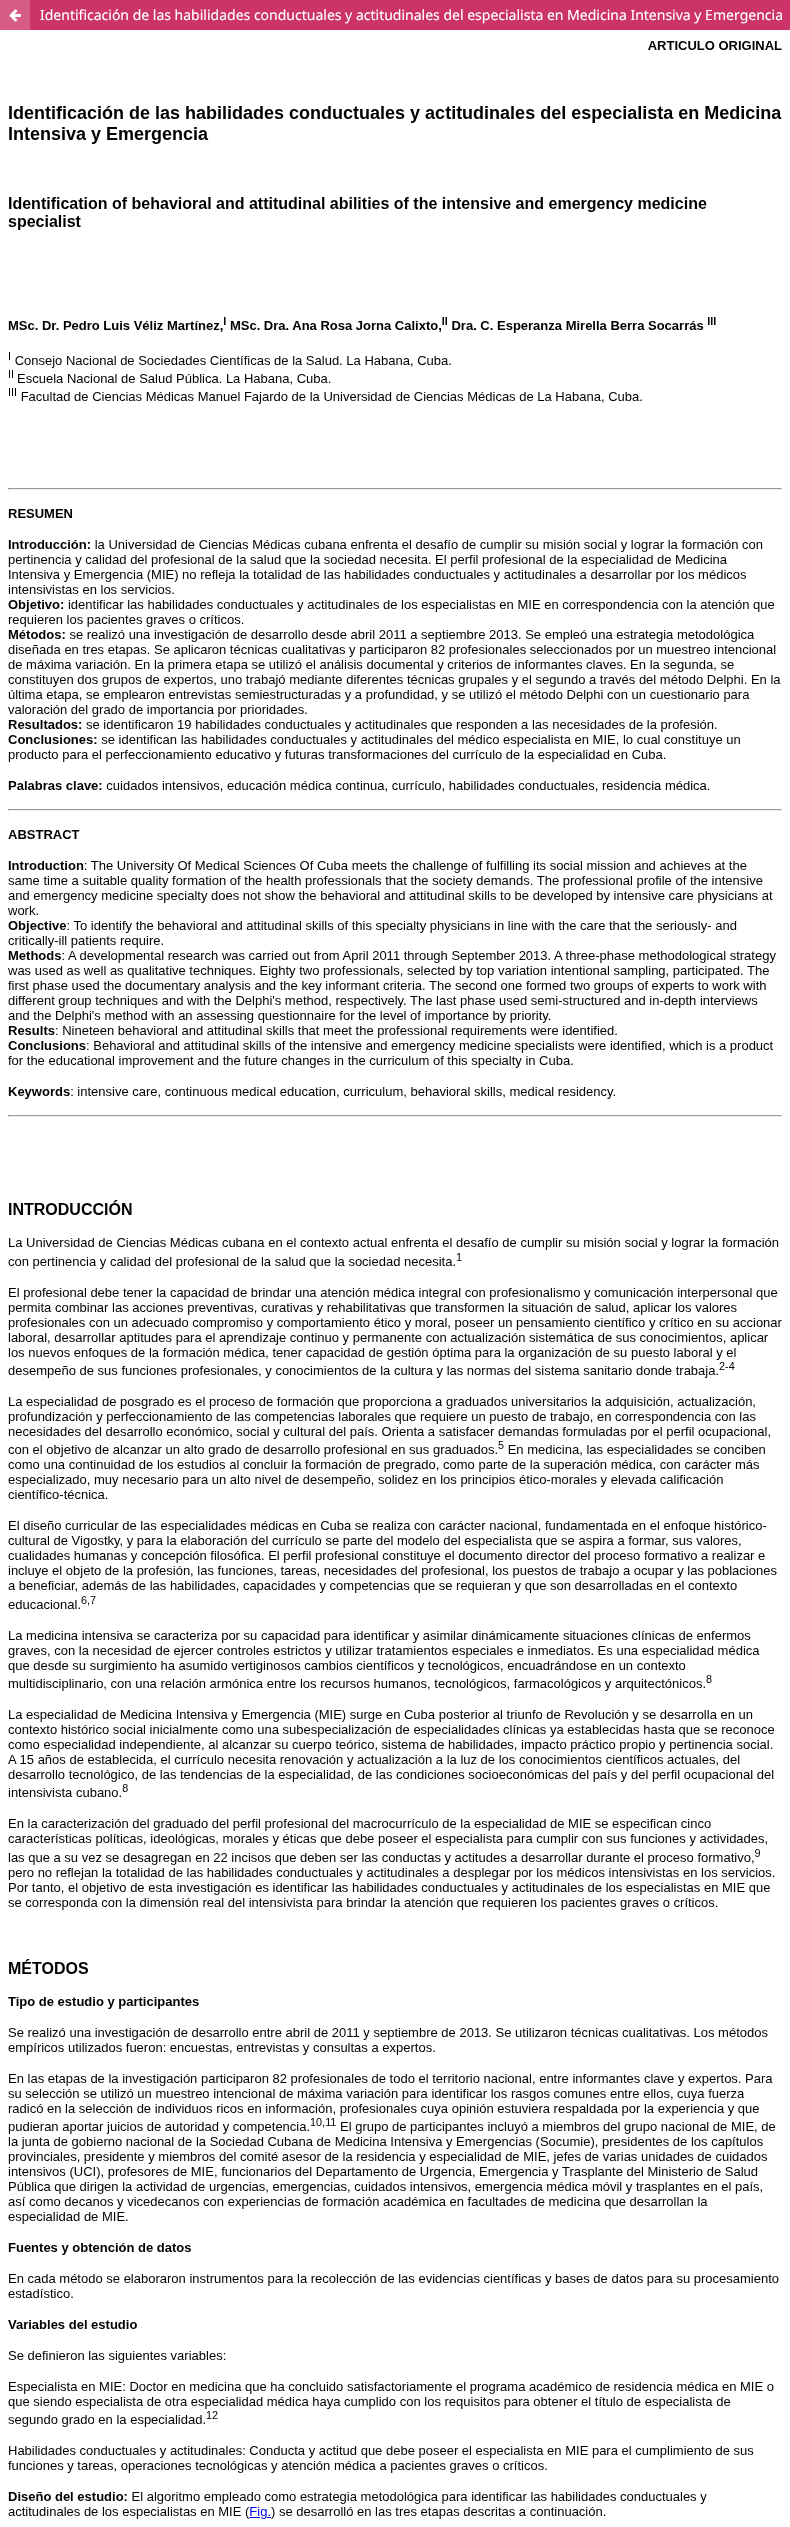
#include "include/core/SkBlurTypes.h"
#include "include/core/SkCanvas.h"
#include "include/core/SkData.h"
#include "include/core/SkFont.h"
#include "include/core/SkFontMgr.h"
#include "include/core/SkImage.h"
#include "include/core/SkMaskFilter.h"
#include "include/core/SkPaint.h"
#include "include/core/SkPathBuilder.h"
#include "include/core/SkTextBlob.h"
#include "include/effects/SkDashPathEffect.h"
#include "include/effects/SkGradientShader.h"
#include "include/utils/SkParsePath.h"

extern sk_sp<SkFontMgr> fontMgr;

void draw(SkCanvas* canvas) {
    SkPaint p;
    p.setAntiAlias(true);
    auto font = [&](const char* family, int weight, float size, bool italic = false) {
        SkFontStyle style(weight, SkFontStyle::kNormal_Width,
            italic ? SkFontStyle::kItalic_Slant : SkFontStyle::kUpright_Slant);
        SkFont result(fontMgr->matchFamilyStyle(family, style), size);
        result.setSubpixel(true);
        return result;
    };
    auto drawPhoto = [&](const char* path, float l, float t, float r, float b) {
        auto image = SkImages::DeferredFromEncodedData(SkData::MakeFromFileName(path));
        canvas->drawImageRect(image, SkRect::MakeLTRB(l, t, r, b), SkSamplingOptions());
    };
    canvas->clear(0xFFFFFFFF);
    p.setColor(0xFFCC3366);
    canvas->drawRect(SkRect::MakeLTRB(30, 0, 790, 30), p);
    p.setColor(0xFFD65C85);
    canvas->drawRect(SkRect::MakeLTRB(0, 0, 30, 30), p);
    drawPhoto("media/1.png", 9, 9, 21, 22);
    auto font1 = font("Noto Sans", 400, 14);
    p.setColor(0xFFFFFFFF);
    canvas->drawString("Identificación de las habilidades conductuales y actitudinales del especialista en Medicina Intensiva y Emergencia", 40, 20, font1, p);
    drawPhoto("media/2.png", 8, 41, 782, 2519);
}
